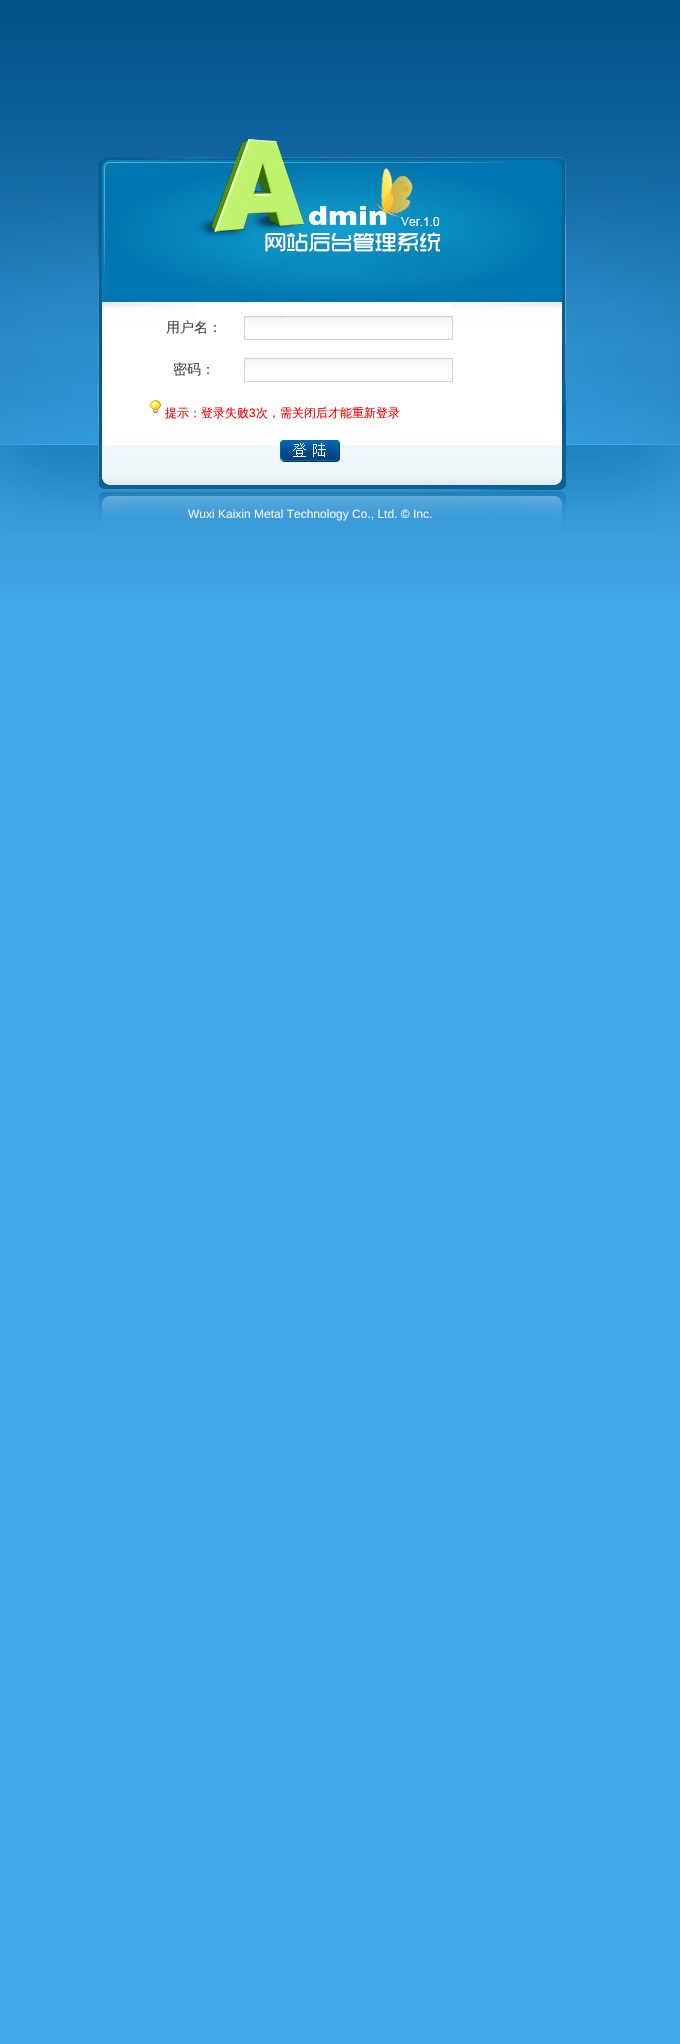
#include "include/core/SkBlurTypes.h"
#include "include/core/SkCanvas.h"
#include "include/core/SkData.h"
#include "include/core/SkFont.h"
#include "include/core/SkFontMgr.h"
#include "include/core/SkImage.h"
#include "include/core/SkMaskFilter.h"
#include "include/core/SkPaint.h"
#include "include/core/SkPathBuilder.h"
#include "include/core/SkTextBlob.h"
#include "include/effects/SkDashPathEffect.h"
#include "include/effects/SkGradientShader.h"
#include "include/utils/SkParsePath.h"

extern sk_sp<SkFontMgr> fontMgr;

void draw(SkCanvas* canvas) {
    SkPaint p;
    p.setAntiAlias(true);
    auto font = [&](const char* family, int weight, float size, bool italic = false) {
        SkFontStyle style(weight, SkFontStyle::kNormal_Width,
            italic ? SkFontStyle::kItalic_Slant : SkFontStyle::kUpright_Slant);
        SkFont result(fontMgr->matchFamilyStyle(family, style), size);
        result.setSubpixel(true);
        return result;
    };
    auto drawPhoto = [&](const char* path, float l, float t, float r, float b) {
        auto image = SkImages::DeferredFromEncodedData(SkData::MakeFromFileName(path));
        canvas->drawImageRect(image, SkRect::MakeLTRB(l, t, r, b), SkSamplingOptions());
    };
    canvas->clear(0xFF42A8E8);
    drawPhoto("media/1.png", 0, 0, 680, 593);
    auto font1 = font("WenQuanYi Zen Hei", 500, 14);
    p.setColor(0xFF444444);
    canvas->drawString("用户名：", 166, 332, font1, p);
    drawPhoto("media/2.png", 245, 317, 452, 327);
    p.setStyle(SkPaint::kStroke_Style);
    p.setStrokeWidth(1);
    p.setColor(0xFFD1D1D1);
    canvas->drawRect(SkRect::MakeLTRB(244.5f, 316.5f, 452.5f, 339.5f), p);
    p.setStyle(SkPaint::kFill_Style);
    p.setColor(0xFF444444);
    canvas->drawString("密码：", 173, 374, font1, p);
    drawPhoto("media/2.png", 245, 359, 452, 369);
    p.setStyle(SkPaint::kStroke_Style);
    p.setColor(0xFFD1D1D1);
    canvas->drawRect(SkRect::MakeLTRB(244.5f, 358.5f, 452.5f, 381.5f), p);
    drawPhoto("media/3.png", 150, 400, 161, 413);
    auto font2 = font("WenQuanYi Zen Hei", 500, 12);
    p.setStyle(SkPaint::kFill_Style);
    p.setColor(0xFFFF0000);
    canvas->drawString("提示：登录失败", 165, 417, font2, p);
    auto font3 = font("Liberation Sans", 400, 12);
    canvas->drawString("3", 249, 417, font3, p);
    canvas->drawString("次，需关闭后才能重新登录", 256, 417, font2, p);
    drawPhoto("media/4.png", 280, 440, 341, 462);
    p.setColor(0xFFEEEEEE);
    canvas->drawString("Wuxi Kaixin Metal Technology Co., Ltd. © Inc.", 188, 518, font3, p);
}
